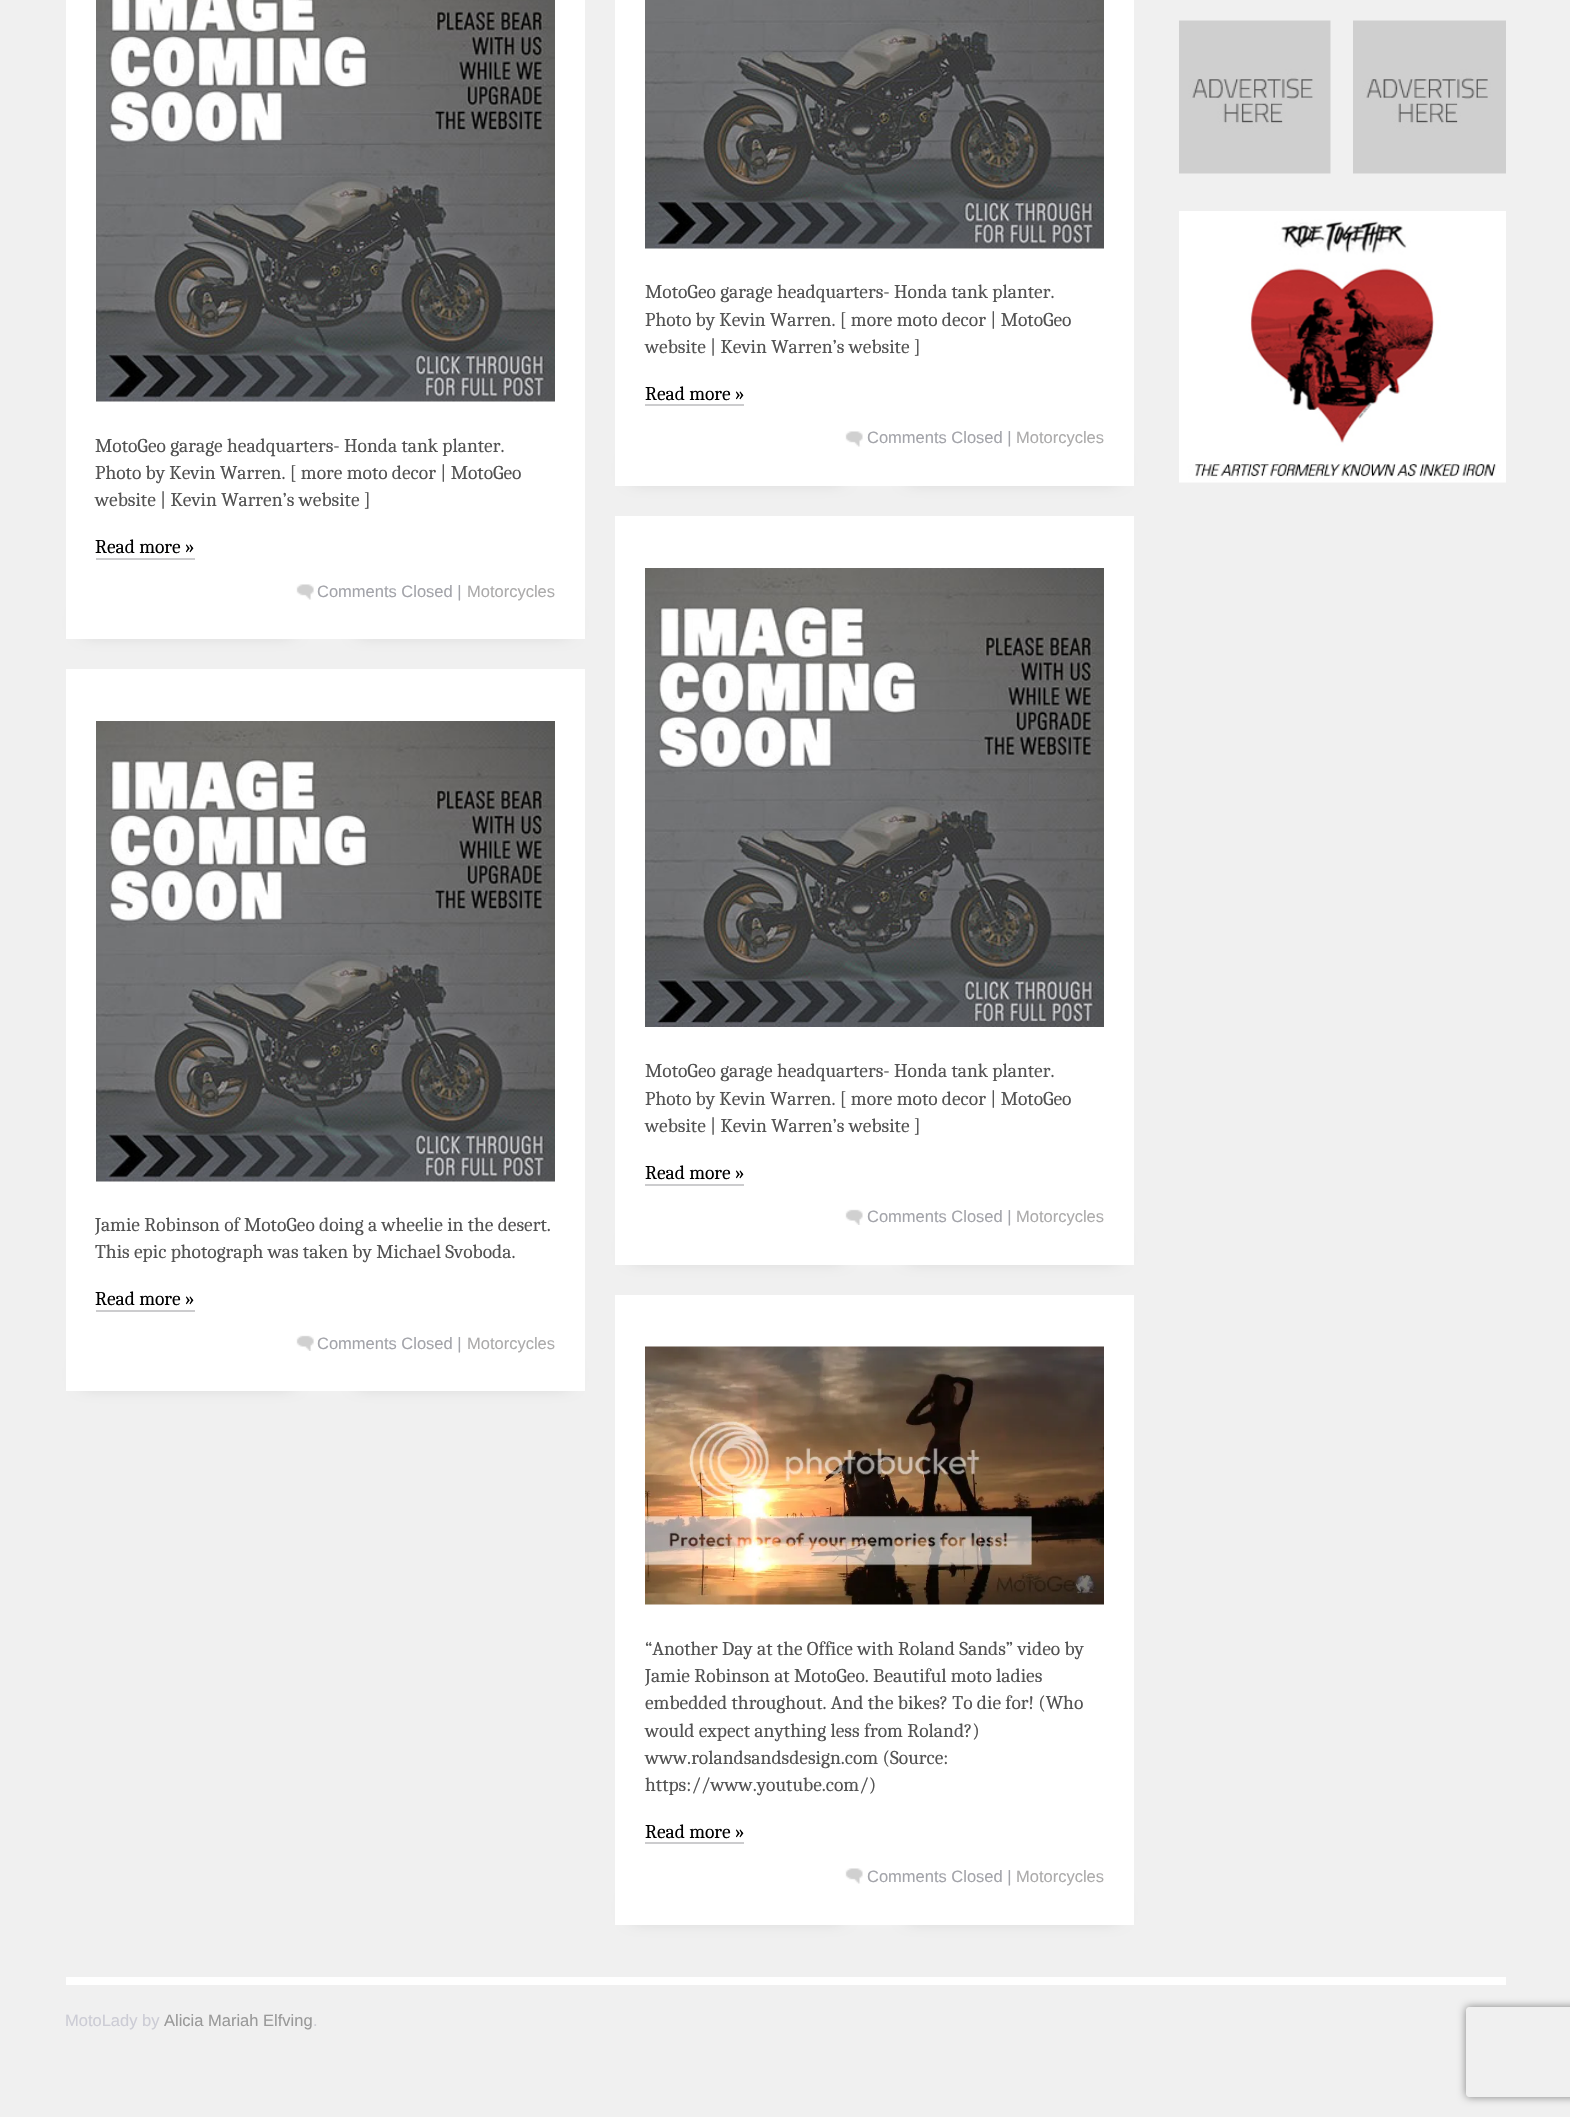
#include "include/core/SkBlurTypes.h"
#include "include/core/SkCanvas.h"
#include "include/core/SkData.h"
#include "include/core/SkFont.h"
#include "include/core/SkFontMgr.h"
#include "include/core/SkImage.h"
#include "include/core/SkMaskFilter.h"
#include "include/core/SkPaint.h"
#include "include/core/SkPathBuilder.h"
#include "include/core/SkTextBlob.h"
#include "include/effects/SkDashPathEffect.h"
#include "include/effects/SkGradientShader.h"
#include "include/utils/SkParsePath.h"

extern sk_sp<SkFontMgr> fontMgr;

void draw(SkCanvas* canvas) {
    SkPaint p;
    p.setAntiAlias(true);
    auto font = [&](const char* family, int weight, float size, bool italic = false) {
        SkFontStyle style(weight, SkFontStyle::kNormal_Width,
            italic ? SkFontStyle::kItalic_Slant : SkFontStyle::kUpright_Slant);
        SkFont result(fontMgr->matchFamilyStyle(family, style), size);
        result.setSubpixel(true);
        return result;
    };
    auto drawPhoto = [&](const char* path, float l, float t, float r, float b) {
        auto image = SkImages::DeferredFromEncodedData(SkData::MakeFromFileName(path));
        canvas->drawImageRect(image, SkRect::MakeLTRB(l, t, r, b), SkSamplingOptions());
    };
    canvas->clear(0xFFF0F0F0);
    p.setColor(0x4D000000);
    p.setMaskFilter(SkMaskFilter::MakeBlur(kNormal_SkBlurStyle, 9));
    canvas->drawRect(SkRect::MakeLTRB(633, 462, 840, 477), p);
    p.setMaskFilter(nullptr);
    p.setMaskFilter(SkMaskFilter::MakeBlur(kNormal_SkBlurStyle, 9));
    canvas->drawRect(SkRect::MakeLTRB(909, 462, 1116, 477), p);
    p.setMaskFilter(nullptr);
    p.setColor(0xFFFFFFFF);
    canvas->drawRect(SkRect::MakeLTRB(615, 0, 1134, 486), p);
    drawPhoto("media/1.png", 645, 0, 1104, 249);
    auto font1 = font("Caladea", 400, 19.5f);
    p.setColor(0xFF535353);
    {
        const struct { const char* s; float x, y; } items[] = {
            {"MotoGeo garage headquarters- Honda tank planter.", 645, 298},
            {"Photo by Kevin Warren. [ more moto decor | MotoGeo", 645, 326},
            {"website | Kevin Warren’s website ]", 645, 353},
        };
        for (auto [s, x, y] : items) {
            canvas->drawString(s, x, y, font1, p);
        }
    }
    p.setColor(0xFF000000);
    canvas->drawString("Read more »", 645, 400, font1, p);
    p.setColor(0xFFCCCCCE);
    canvas->drawRect(SkRect::MakeLTRB(645, 404, 744, 406), p);
    drawPhoto("media/2.png", 845, 431, 863, 447);
    auto font2 = font("Liberation Sans", 400, 16.5f);
    p.setColor(0xFFA3A4AA);
    canvas->drawString("Comments Closed |", 867, 443, font2, p);
    p.setColor(0xFFACABAB);
    canvas->drawString("Motorcycles", 1016, 443, font2, p);
    p.setColor(0x4D000000);
    p.setMaskFilter(SkMaskFilter::MakeBlur(kNormal_SkBlurStyle, 9));
    canvas->drawRect(SkRect::MakeLTRB(84, 615, 291, 630), p);
    p.setMaskFilter(nullptr);
    p.setMaskFilter(SkMaskFilter::MakeBlur(kNormal_SkBlurStyle, 9));
    canvas->drawRect(SkRect::MakeLTRB(359, 615, 567, 630), p);
    p.setMaskFilter(nullptr);
    p.setColor(0xFFFFFFFF);
    canvas->drawRect(SkRect::MakeLTRB(66, 0, 585, 639), p);
    drawPhoto("media/3.png", 96, 0, 555, 402);
    p.setColor(0xFF535353);
    {
        const struct { const char* s; float x, y; } items[] = {
            {"MotoGeo garage headquarters- Honda tank planter.", 95, 452},
            {"Photo by Kevin Warren. [ more moto decor | MotoGeo", 95, 479},
            {"website | Kevin Warren’s website ]", 95, 506},
        };
        for (auto [s, x, y] : items) {
            canvas->drawString(s, x, y, font1, p);
        }
    }
    p.setColor(0xFF000000);
    canvas->drawString("Read more »", 95, 553, font1, p);
    p.setColor(0xFFCCCCCE);
    canvas->drawRect(SkRect::MakeLTRB(96, 558, 195, 560), p);
    drawPhoto("media/4.png", 296, 584, 314, 600);
    p.setColor(0xFFA3A4AA);
    canvas->drawString("Comments Closed |", 317, 597, font2, p);
    p.setColor(0xFFACABAB);
    canvas->drawString("Motorcycles", 467, 597, font2, p);
    p.setColor(0x4D000000);
    p.setMaskFilter(SkMaskFilter::MakeBlur(kNormal_SkBlurStyle, 9));
    canvas->drawRect(SkRect::MakeLTRB(633, 1241, 840, 1256), p);
    p.setMaskFilter(nullptr);
    p.setMaskFilter(SkMaskFilter::MakeBlur(kNormal_SkBlurStyle, 9));
    canvas->drawRect(SkRect::MakeLTRB(909, 1241, 1116, 1256), p);
    p.setMaskFilter(nullptr);
    p.setColor(0xFFFFFFFF);
    canvas->drawRect(SkRect::MakeLTRB(615, 516, 1134, 1265), p);
    drawPhoto("media/5.png", 645, 568, 1104, 1027);
    p.setColor(0xFF535353);
    {
        const struct { const char* s; float x, y; } items[] = {
            {"MotoGeo garage headquarters- Honda tank planter.", 645, 1077},
            {"Photo by Kevin Warren. [ more moto decor | MotoGeo", 645, 1105},
            {"website | Kevin Warren’s website ]", 645, 1132},
        };
        for (auto [s, x, y] : items) {
            canvas->drawString(s, x, y, font1, p);
        }
    }
    p.setColor(0xFF000000);
    canvas->drawString("Read more »", 645, 1179, font1, p);
    p.setColor(0xFFCCCCCE);
    canvas->drawRect(SkRect::MakeLTRB(645, 1184, 744, 1186), p);
    drawPhoto("media/6.png", 845, 1209, 863, 1225);
    p.setColor(0xFFA3A4AA);
    canvas->drawString("Comments Closed |", 867, 1222, font2, p);
    p.setColor(0xFFACABAB);
    canvas->drawString("Motorcycles", 1016, 1222, font2, p);
    p.setColor(0x4D000000);
    p.setMaskFilter(SkMaskFilter::MakeBlur(kNormal_SkBlurStyle, 9));
    canvas->drawRect(SkRect::MakeLTRB(84, 1367, 291, 1382), p);
    p.setMaskFilter(nullptr);
    p.setMaskFilter(SkMaskFilter::MakeBlur(kNormal_SkBlurStyle, 9));
    canvas->drawRect(SkRect::MakeLTRB(359, 1367, 567, 1382), p);
    p.setMaskFilter(nullptr);
    p.setColor(0xFFFFFFFF);
    canvas->drawRect(SkRect::MakeLTRB(66, 669, 585, 1391), p);
    drawPhoto("media/7.png", 96, 721, 555, 1182);
    p.setColor(0xFF535353);
    canvas->drawString("Jamie Robinson of MotoGeo doing a wheelie in the desert.", 95, 1231, font1, p);
    canvas->drawString("This epic photograph was taken by Michael Svoboda.", 95, 1258, font1, p);
    p.setColor(0xFF000000);
    canvas->drawString("Read more »", 95, 1305, font1, p);
    p.setColor(0xFFCCCCCE);
    canvas->drawRect(SkRect::MakeLTRB(96, 1310, 195, 1312), p);
    drawPhoto("media/8.png", 296, 1335, 314, 1351);
    p.setColor(0xFFA3A4AA);
    canvas->drawString("Comments Closed |", 317, 1349, font2, p);
    p.setColor(0xFFACABAB);
    canvas->drawString("Motorcycles", 467, 1349, font2, p);
    p.setColor(0x4D000000);
    p.setMaskFilter(SkMaskFilter::MakeBlur(kNormal_SkBlurStyle, 9));
    canvas->drawRect(SkRect::MakeLTRB(633, 1901, 840, 1916), p);
    p.setMaskFilter(nullptr);
    p.setMaskFilter(SkMaskFilter::MakeBlur(kNormal_SkBlurStyle, 9));
    canvas->drawRect(SkRect::MakeLTRB(909, 1901, 1116, 1916), p);
    p.setMaskFilter(nullptr);
    p.setColor(0xFFFFFFFF);
    canvas->drawRect(SkRect::MakeLTRB(615, 1295, 1134, 1925), p);
    drawPhoto("media/9.png", 645, 1346, 1104, 1605);
    p.setColor(0xFF535353);
    {
        const struct { const char* s; float x, y; } items[] = {
            {"“Another Day at the Office with Roland Sands” video by", 645, 1655},
            {"Jamie Robinson at MotoGeo. Beautiful moto ladies", 645, 1682},
            {"embedded throughout. And the bikes? To die for! (Who", 645, 1709},
            {"would expect anything less from Roland?)", 645, 1737},
            {"www.rolandsandsdesign.com (Source:", 645, 1764},
            {"https://www.youtube.com/)", 645, 1791},
        };
        for (auto [s, x, y] : items) {
            canvas->drawString(s, x, y, font1, p);
        }
    }
    p.setColor(0xFF000000);
    canvas->drawString("Read more »", 645, 1838, font1, p);
    p.setColor(0xFFCCCCCE);
    canvas->drawRect(SkRect::MakeLTRB(645, 1842, 744, 1844), p);
    drawPhoto("media/2.png", 845, 1868, 863, 1884);
    p.setColor(0xFFA3A4AA);
    canvas->drawString("Comments Closed |", 867, 1882, font2, p);
    p.setColor(0xFFACABAB);
    canvas->drawString("Motorcycles", 1016, 1882, font2, p);
    drawPhoto("media/10.png", 1179, 20, 1331, 174);
    drawPhoto("media/11.png", 1353, 20, 1506, 174);
    drawPhoto("media/12.png", 1179, 211, 1506, 483);
    p.setColor(0xFFFFFFFF);
    canvas->drawRect(SkRect::MakeLTRB(66, 1977, 1506, 1985), p);
    p.setColor(0xFFCCCCD5);
    canvas->drawString("MotoLady by", 65, 2026, font2, p);
    p.setColor(0xFF999999);
    canvas->drawString("Alicia Mariah Elfving", 164, 2026, font2, p);
    p.setColor(0xFFCCCCD5);
    canvas->drawString(".", 313, 2026, font2, p);
    canvas->save();
    canvas->clipPath(SkPathBuilder(SkPathFillType::kEvenOdd).moveTo(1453, 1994).lineTo(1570, 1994).lineTo(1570, 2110).lineTo(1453, 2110).close().moveTo(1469, 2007).lineTo(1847, 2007).cubicTo(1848.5f, 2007, 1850, 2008.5f, 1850, 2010).lineTo(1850, 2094).cubicTo(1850, 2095.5f, 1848.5f, 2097, 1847, 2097).lineTo(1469, 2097).cubicTo(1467.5f, 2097, 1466, 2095.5f, 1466, 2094).lineTo(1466, 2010).cubicTo(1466, 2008.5f, 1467.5f, 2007, 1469, 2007).close().detach(), true);
    p.setColor(0xFF808080);
    p.setMaskFilter(SkMaskFilter::MakeBlur(kNormal_SkBlurStyle, 4));
    canvas->drawRoundRect(SkRect::MakeLTRB(1466, 2007, 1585, 2097), 3, 3, p);
    p.setMaskFilter(nullptr);
    canvas->restore();
}
